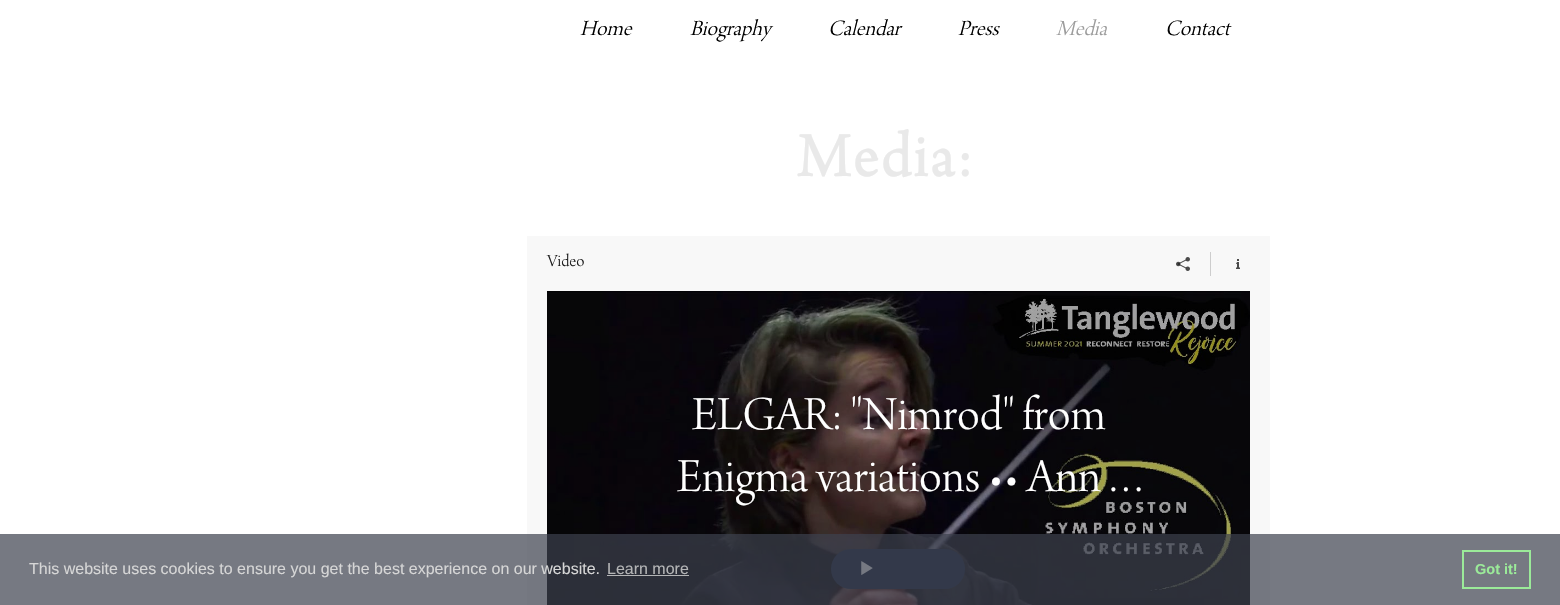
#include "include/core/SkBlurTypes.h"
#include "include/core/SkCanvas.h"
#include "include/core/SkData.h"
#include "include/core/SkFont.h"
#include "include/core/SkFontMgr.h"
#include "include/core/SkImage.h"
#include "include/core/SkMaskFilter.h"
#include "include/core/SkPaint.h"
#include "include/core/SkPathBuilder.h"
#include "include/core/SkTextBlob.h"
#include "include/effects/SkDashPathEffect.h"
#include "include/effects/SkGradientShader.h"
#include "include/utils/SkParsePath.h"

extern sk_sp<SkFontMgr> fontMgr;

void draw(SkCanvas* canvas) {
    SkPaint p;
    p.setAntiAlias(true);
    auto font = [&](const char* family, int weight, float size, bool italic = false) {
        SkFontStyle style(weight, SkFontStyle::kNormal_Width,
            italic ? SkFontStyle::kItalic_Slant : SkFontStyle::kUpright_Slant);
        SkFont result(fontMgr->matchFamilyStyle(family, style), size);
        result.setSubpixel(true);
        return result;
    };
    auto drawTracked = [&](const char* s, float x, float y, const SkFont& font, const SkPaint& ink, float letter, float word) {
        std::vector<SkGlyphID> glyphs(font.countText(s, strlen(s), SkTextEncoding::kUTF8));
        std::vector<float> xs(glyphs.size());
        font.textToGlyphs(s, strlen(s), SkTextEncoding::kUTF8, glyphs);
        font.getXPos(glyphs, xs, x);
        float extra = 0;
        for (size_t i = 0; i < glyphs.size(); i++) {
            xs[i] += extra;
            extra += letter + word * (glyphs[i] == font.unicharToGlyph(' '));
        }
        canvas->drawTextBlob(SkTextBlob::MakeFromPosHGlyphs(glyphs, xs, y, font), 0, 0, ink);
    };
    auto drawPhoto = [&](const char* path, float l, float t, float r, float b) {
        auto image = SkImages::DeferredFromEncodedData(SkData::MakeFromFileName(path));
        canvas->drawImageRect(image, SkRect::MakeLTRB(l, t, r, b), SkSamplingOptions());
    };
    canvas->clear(0xFFFFFFFF);
    p.setColor(0xFFF8F8F8);
    canvas->drawRect(SkRect::MakeLTRB(527, 236, 1270, 605), p);
    auto font1 = font("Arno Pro", 300, 23, true);
    p.setColor(0xFF000000);
    {
        const struct { const char* s; float x, y; } items[] = {
            {"Home", 580, 35},
            {"Biography", 690, 35},
            {"Calendar", 828, 35},
            {"Press", 958, 35},
        };
        for (auto [s, x, y] : items) {
            canvas->drawString(s, x, y, font1, p);
        }
    }
    p.setColor(0xFF9C9C9C);
    canvas->drawString("Media", 1056, 35, font1, p);
    p.setColor(0xFF000000);
    canvas->drawString("Contact", 1165, 35, font1, p);
    auto font2 = font("Arno Pro", 700, 65);
    p.setColor(0xFFE9E9E9);
    drawTracked("Media:", 797, 176, font2, p, 3.25f, 0);
    auto font3 = font("Arno Pro", 300, 18);
    p.setColor(0xFF1F1F1F);
    canvas->drawString("Video", 547, 266, font3, p);
    p.setColor(0xFFCDCDCD);
    canvas->drawRect(SkRect::MakeLTRB(1210, 252, 1211, 276), p);
    drawPhoto("media/1.png", 1176, 257, 1190, 271);
    drawPhoto("media/2.png", 1236, 259, 1240, 269);
    drawPhoto("media/3.png", 547, 291, 1250, 605);
    drawPhoto("media/4.png", 1033, 318, 1230, 588);
    auto font4 = font("Arno Pro", 300, 50);
    p.setColor(0xFFFFFFFF);
    canvas->drawString("ELGAR: \"Nimrod\" from", 692, 429, font4, p);
    canvas->drawString("Enigma variations •• Ann…", 677, 491, font4, p);
    p.setColor(0xFF1B2842);
    canvas->drawRoundRect(SkRect::MakeLTRB(831, 549, 965, 589), 20, 20, p);
    drawPhoto("media/5.png", 861, 561, 873, 575);
    p.setColor(0xB33C404D);
    canvas->drawRect(SkRect::MakeLTRB(0, 534, 1560, 605), p);
    auto font5 = font("Liberation Sans", 400, 16);
    p.setColor(0xFFD6D6D6);
    canvas->drawString("This website uses cookies to ensure you get the best experience on our website.", 29, 574, font5, p);
    p.setColor(0xFFB4B5B6);
    canvas->drawString("Learn more", 607, 574, font5, p);
    canvas->drawRect(SkRect::MakeLTRB(607, 575, 689, 576), p);
    p.setStyle(SkPaint::kStroke_Style);
    p.setStrokeWidth(2);
    p.setColor(0xFF9BEA99);
    canvas->drawRect(SkRect::MakeLTRB(1463, 551, 1530, 588), p);
    auto font6 = font("Liberation Sans", 700, 14.5f);
    p.setStyle(SkPaint::kFill_Style);
    canvas->drawString("Got it!", 1475, 574, font6, p);
}
